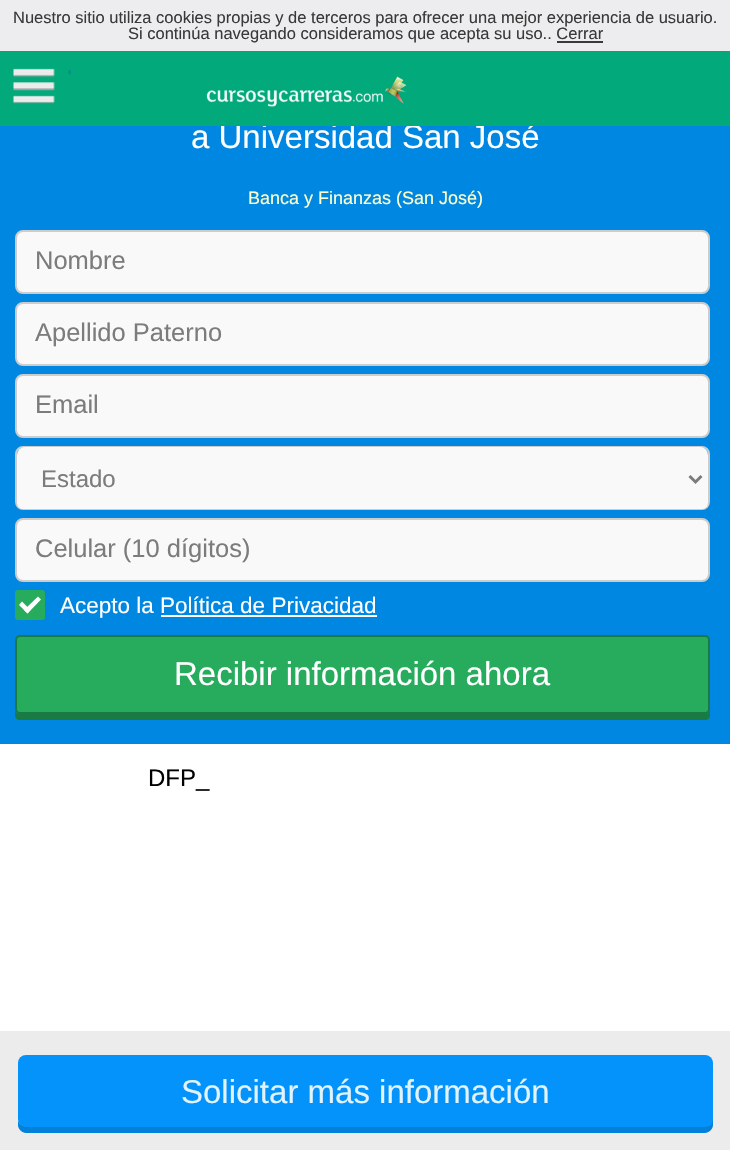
#include "include/core/SkBlurTypes.h"
#include "include/core/SkCanvas.h"
#include "include/core/SkData.h"
#include "include/core/SkFont.h"
#include "include/core/SkFontMgr.h"
#include "include/core/SkImage.h"
#include "include/core/SkMaskFilter.h"
#include "include/core/SkPaint.h"
#include "include/core/SkPathBuilder.h"
#include "include/core/SkTextBlob.h"
#include "include/effects/SkDashPathEffect.h"
#include "include/effects/SkGradientShader.h"
#include "include/utils/SkParsePath.h"

extern sk_sp<SkFontMgr> fontMgr;

void draw(SkCanvas* canvas) {
    SkPaint p;
    p.setAntiAlias(true);
    auto font = [&](const char* family, int weight, float size, bool italic = false) {
        SkFontStyle style(weight, SkFontStyle::kNormal_Width,
            italic ? SkFontStyle::kItalic_Slant : SkFontStyle::kUpright_Slant);
        SkFont result(fontMgr->matchFamilyStyle(family, style), size);
        result.setSubpixel(true);
        return result;
    };
    auto drawPhoto = [&](const char* path, float l, float t, float r, float b) {
        auto image = SkImages::DeferredFromEncodedData(SkData::MakeFromFileName(path));
        canvas->drawImageRect(image, SkRect::MakeLTRB(l, t, r, b), SkSamplingOptions());
    };
    canvas->clear(0xFFFFFFFF);
    p.setColor(0xFFEDECEF);
    canvas->drawRect(SkRect::MakeLTRB(0, 0, 730, 51), p);
    auto font1 = font("Liberation Sans", 400, 16.5f);
    p.setColor(0xFF393939);
    canvas->drawString("Nuestro sitio utiliza cookies propias y de terceros para ofrecer una mejor experiencia de usuario.", 13, 23, font1, p);
    canvas->drawString("Si continúa navegando consideramos que acepta su uso.. Cerrar", 128, 39, font1, p);
    canvas->drawRect(SkRect::MakeLTRB(557, 41, 603, 43), p);
    p.setColor(0xFF0087E2);
    canvas->drawRect(SkRect::MakeLTRB(0, 126, 730, 744), p);
    auto font2 = font("Liberation Sans", 400, 33);
    p.setColor(0xFFFFFFFF);
    canvas->drawString("a Universidad San José", 191, 148, font2, p);
    p.setColor(0xFF01A97B);
    canvas->drawRect(SkRect::MakeLTRB(0, 51, 730, 126), p);
    drawPhoto("media/1.png", 13, 68, 71, 104);
    drawPhoto("media/2.png", 206, 76, 407, 107);
    auto font3 = font("Liberation Sans", 400, 18);
    p.setColor(0xFFFFFFCC);
    canvas->drawString("Banca y Finanzas (San José)", 248, 204, font3, p);
    p.setColor(0xFFF9F9F9);
    canvas->drawRoundRect(SkRect::MakeLTRB(16, 231, 709, 293), 7, 7, p);
    p.setStyle(SkPaint::kStroke_Style);
    p.setStrokeWidth(2);
    p.setColor(0xFFCCCCCC);
    canvas->drawRoundRect(SkRect::MakeLTRB(16, 231, 709, 293), 7, 7, p);
    auto font4 = font("Liberation Sans", 400, 25.5f);
    p.setStyle(SkPaint::kFill_Style);
    p.setColor(0xFF7C7C7C);
    canvas->drawString("Nombre", 35, 269, font4, p);
    p.setColor(0xFFF9F9F9);
    canvas->drawRoundRect(SkRect::MakeLTRB(16, 303, 709, 365), 7, 7, p);
    p.setStyle(SkPaint::kStroke_Style);
    p.setColor(0xFFCCCCCC);
    canvas->drawRoundRect(SkRect::MakeLTRB(16, 303, 709, 365), 7, 7, p);
    p.setStyle(SkPaint::kFill_Style);
    p.setColor(0xFF7C7C7C);
    canvas->drawString("Apellido Paterno", 35, 341, font4, p);
    p.setColor(0xFFF9F9F9);
    canvas->drawRoundRect(SkRect::MakeLTRB(16, 375, 709, 437), 7, 7, p);
    p.setStyle(SkPaint::kStroke_Style);
    p.setColor(0xFFCCCCCC);
    canvas->drawRoundRect(SkRect::MakeLTRB(16, 375, 709, 437), 7, 7, p);
    p.setStyle(SkPaint::kFill_Style);
    p.setColor(0xFF7C7C7C);
    canvas->drawString("Email", 35, 413, font4, p);
    p.setStyle(SkPaint::kStroke_Style);
    p.setColor(0xFFCCCCCC);
    canvas->drawRoundRect(SkRect::MakeLTRB(16, 447, 709, 509), 7, 7, p);
    canvas->save();
    canvas->clipPath(SkPathBuilder().moveTo(23, 447).lineTo(702, 447).cubicTo(705.5f, 447, 708, 449.5f, 708, 453).lineTo(708, 503).cubicTo(708, 506.5f, 705.5f, 509, 702, 509).lineTo(23, 509).cubicTo(19.5f, 509, 17, 506.5f, 17, 503).lineTo(17, 453).cubicTo(17, 449.5f, 19.5f, 447, 23, 447).close().detach(), true);
    p.setStyle(SkPaint::kFill_Style);
    p.setColor(0xFFF9F9F9);
    canvas->drawRoundRect(SkRect::MakeLTRB(17, 447, 708, 512), 8, 8, p);
    canvas->restore();
    p.setStyle(SkPaint::kStroke_Style);
    p.setStrokeWidth(3);
    p.setColor(0xFF7C7C7C);
    canvas->drawPath(SkPathBuilder().moveTo(689.5f, 476).lineTo(695.5f, 482).lineTo(701.5f, 476).detach(), p);
    auto font5 = font("Liberation Sans", 400, 24);
    p.setStyle(SkPaint::kFill_Style);
    canvas->drawString("Estado", 41, 487, font5, p);
    p.setColor(0xFFF9F9F9);
    canvas->drawRoundRect(SkRect::MakeLTRB(16, 519, 709, 581), 7, 7, p);
    p.setStyle(SkPaint::kStroke_Style);
    p.setStrokeWidth(2);
    p.setColor(0xFFCCCCCC);
    canvas->drawRoundRect(SkRect::MakeLTRB(16, 519, 709, 581), 7, 7, p);
    p.setStyle(SkPaint::kFill_Style);
    p.setColor(0xFF7C7C7C);
    canvas->drawString("Celular (10 dígitos)", 35, 557, font4, p);
    p.setColor(0xFF27AC5D);
    canvas->drawRoundRect(SkRect::MakeLTRB(15, 590, 45, 620), 3, 3, p);
    p.setColor(0xFFFFFFFF);
    canvas->drawPath(SkPathBuilder().moveTo(38, 596.5f).lineTo(41, 599.5f).lineTo(27.5f, 613.5f).lineTo(24, 610).close().detach(), p);
    canvas->drawPath(SkPathBuilder().moveTo(22, 601.5f).lineTo(30.5f, 610).lineTo(27.5f, 613.5f).lineTo(19, 605).close().detach(), p);
    auto font6 = font("Liberation Sans", 400, 22.5f);
    canvas->drawString("Acepto la Política de Privacidad", 60, 613, font6, p);
    canvas->drawRect(SkRect::MakeLTRB(161, 615, 377, 617), p);
    p.setColor(0xFF197A44);
    canvas->drawPath(SkPathBuilder().moveTo(15, 710).lineTo(15, 715).cubicTo(15, 718, 17, 720, 20, 720).lineTo(705, 720).cubicTo(708, 720, 710, 718, 710, 715).lineTo(710, 646).lineTo(710, 644).lineTo(710, 710).cubicTo(710, 712, 707, 714, 705, 714).lineTo(20, 714).cubicTo(17, 714, 15, 712, 15, 710).close().detach(), p);
    p.setColor(0xFF27AC5D);
    canvas->drawRoundRect(SkRect::MakeLTRB(16, 636, 709, 713), 4, 4, p);
    p.setStyle(SkPaint::kStroke_Style);
    p.setColor(0xFF197A44);
    canvas->drawRoundRect(SkRect::MakeLTRB(16, 636, 709, 713), 4, 4, p);
    p.setStyle(SkPaint::kFill_Style);
    p.setColor(0xFFFFFFFF);
    canvas->drawString("Recibir información ahora", 174, 685, font2, p);
    p.setColor(0xFFECECEC);
    canvas->drawRect(SkRect::MakeLTRB(0, 1031, 730, 1150), p);
    p.setColor(0xFF0280DA);
    canvas->drawPath(SkPathBuilder().moveTo(18, 1119).lineTo(18, 1125).cubicTo(18, 1129, 22, 1133, 26, 1133).lineTo(705, 1133).cubicTo(709, 1133, 713, 1129, 713, 1125).lineTo(713, 1069).lineTo(712, 1066).lineTo(712, 1119).cubicTo(712, 1123, 709, 1126, 705, 1126).lineTo(26, 1126).cubicTo(21, 1126, 18, 1123, 18, 1119).close().detach(), p);
    p.setColor(0xFF0393FA);
    canvas->drawRoundRect(SkRect::MakeLTRB(18, 1055, 713, 1127), 8, 8, p);
    p.setColor(0xFFE2F3FE);
    canvas->drawString("Solicitar más información", 181, 1103, font2, p);
    p.setColor(0xFF000000);
    canvas->drawString("DFP_", 148, 786, font5, p);
}
